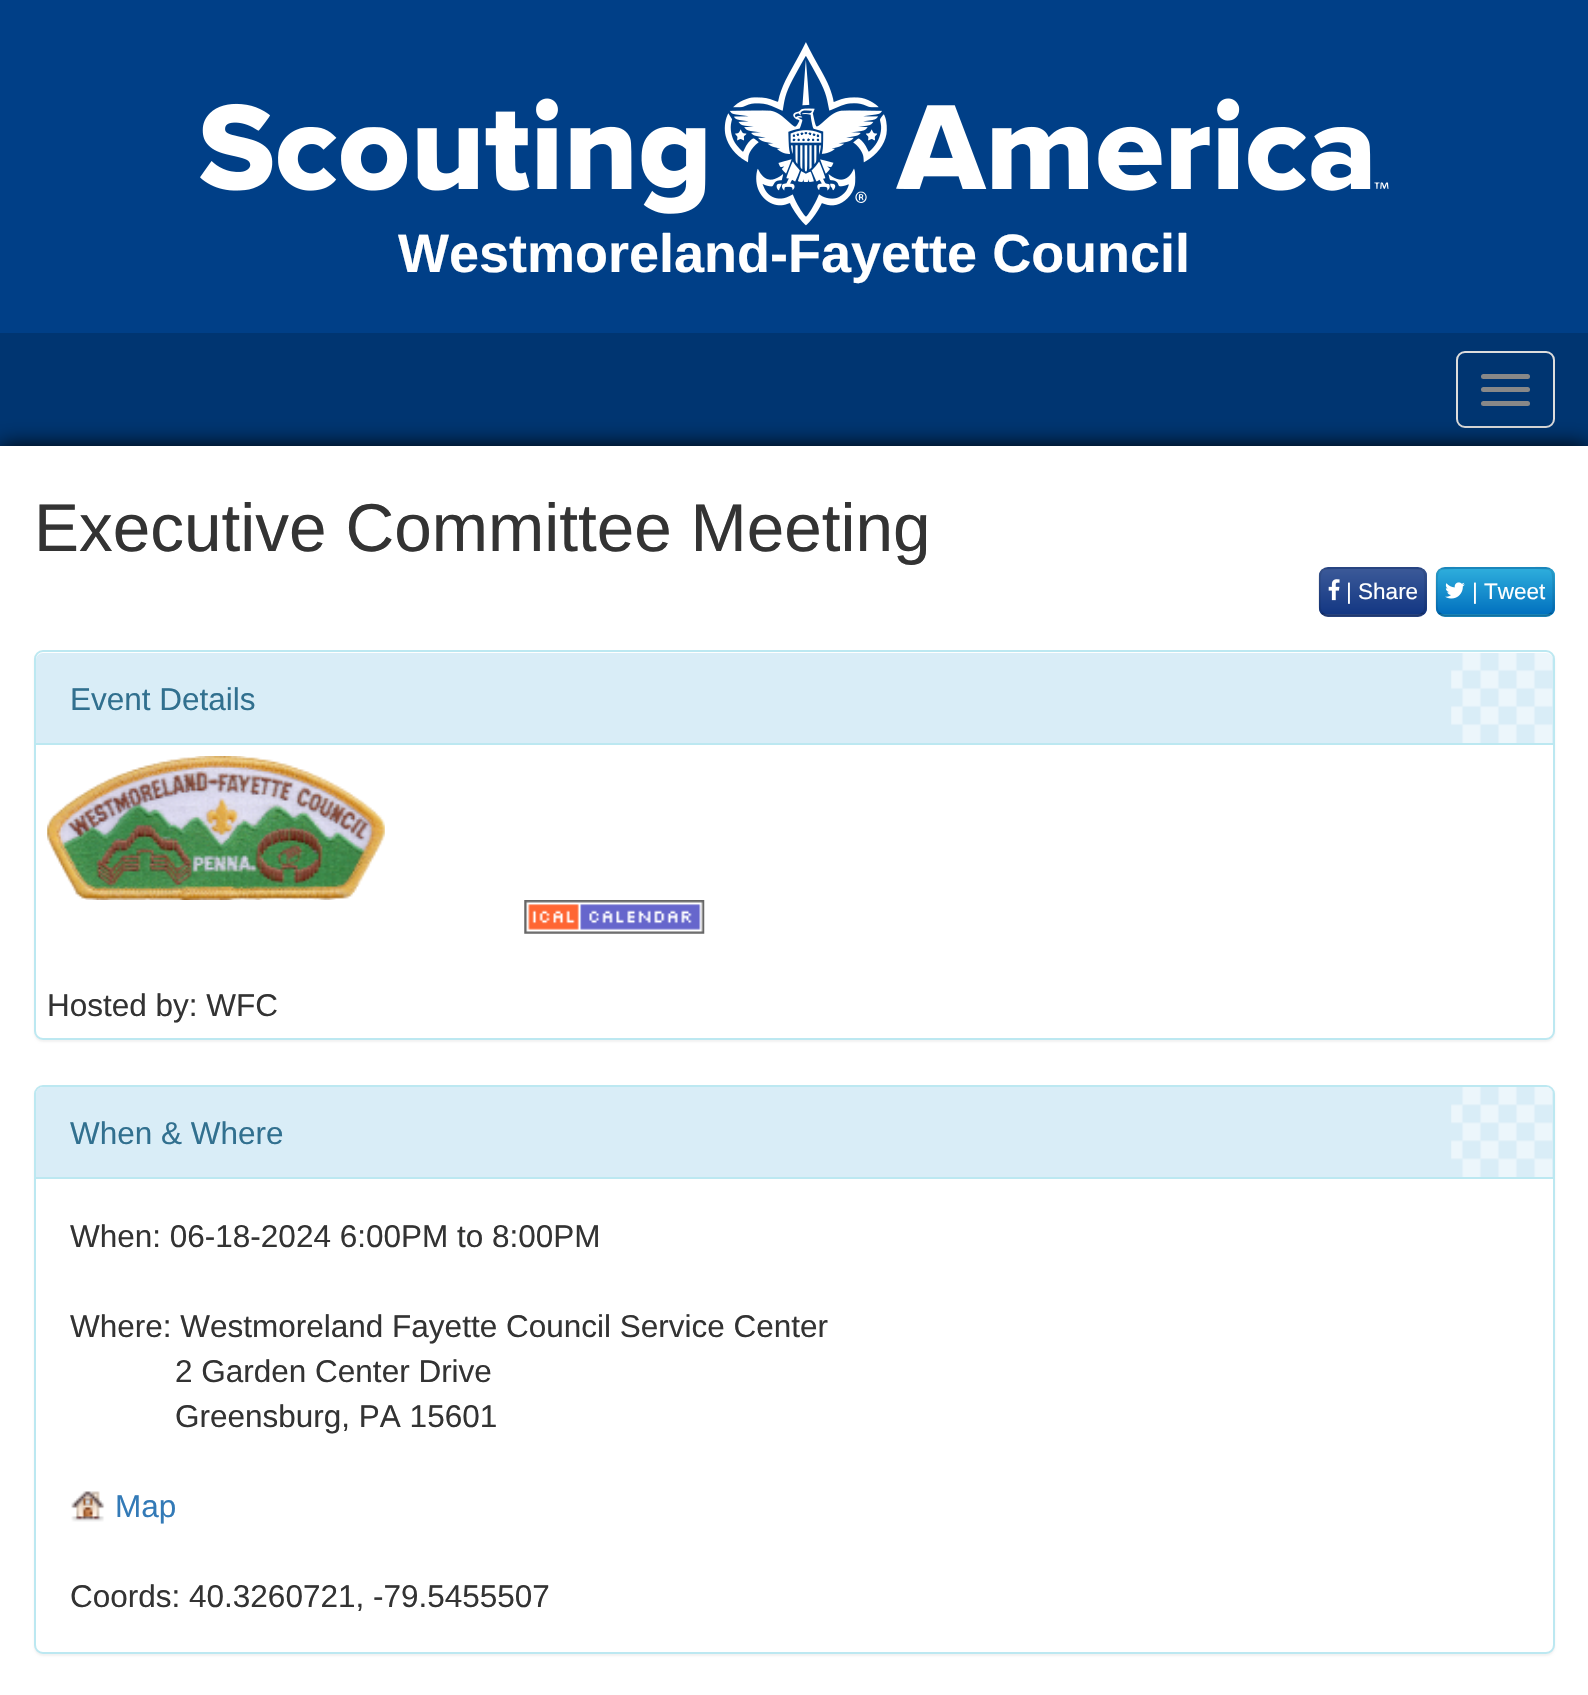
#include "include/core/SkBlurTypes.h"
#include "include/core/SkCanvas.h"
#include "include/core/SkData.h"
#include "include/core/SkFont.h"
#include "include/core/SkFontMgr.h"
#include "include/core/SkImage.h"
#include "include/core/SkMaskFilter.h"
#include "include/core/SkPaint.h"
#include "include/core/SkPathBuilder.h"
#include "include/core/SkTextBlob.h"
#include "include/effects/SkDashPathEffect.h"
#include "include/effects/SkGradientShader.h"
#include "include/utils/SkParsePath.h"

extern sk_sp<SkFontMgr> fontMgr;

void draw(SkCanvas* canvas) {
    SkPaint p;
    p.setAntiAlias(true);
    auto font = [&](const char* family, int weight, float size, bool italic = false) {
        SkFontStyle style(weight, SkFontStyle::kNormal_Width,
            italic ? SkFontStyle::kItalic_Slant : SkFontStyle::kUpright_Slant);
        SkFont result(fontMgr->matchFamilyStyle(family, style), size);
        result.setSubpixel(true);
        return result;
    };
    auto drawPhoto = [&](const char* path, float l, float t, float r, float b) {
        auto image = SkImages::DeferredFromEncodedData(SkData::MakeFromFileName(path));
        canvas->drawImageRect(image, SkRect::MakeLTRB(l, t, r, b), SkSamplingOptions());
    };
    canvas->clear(0xFF003F87);
    drawPhoto("media/1.png", 200, 42, 1389, 226);
    auto font1 = font("Liberation Sans", 700, 54);
    p.setColor(0xFFFFFFFF);
    canvas->drawString("Westmoreland-Fayette Council", 398, 272, font1, p);
    p.setColor(0xFF003571);
    canvas->drawRect(SkRect::MakeLTRB(0, 333, 1588, 446), p);
    p.setStyle(SkPaint::kStroke_Style);
    p.setStrokeWidth(2);
    p.setColor(0xFFDDDDDD);
    canvas->drawRoundRect(SkRect::MakeLTRB(1457, 352, 1554, 427), 8, 8, p);
    p.setStyle(SkPaint::kFill_Style);
    p.setColor(0xFF888888);
    canvas->drawRoundRect(SkRect::MakeLTRB(1481, 374, 1530, 379), 2.5f, 2.5f, p);
    canvas->drawRoundRect(SkRect::MakeLTRB(1481, 387, 1530, 392), 2.5f, 2.5f, p);
    canvas->drawRoundRect(SkRect::MakeLTRB(1481, 401, 1530, 406), 2.5f, 2.5f, p);
    p.setColor(0xFF000000);
    p.setMaskFilter(SkMaskFilter::MakeBlur(kNormal_SkBlurStyle, 11));
    canvas->drawRect(SkRect::MakeLTRB(0, 446, 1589, 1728), p);
    p.setMaskFilter(nullptr);
    p.setColor(0xFFFFFFFF);
    canvas->drawRect(SkRect::MakeLTRB(0, 446, 1588, 1695), p);
    auto font2 = font("Liberation Sans", 400, 67.5f);
    p.setColor(0xFF333333);
    canvas->drawString("Executive Committee Meeting", 34, 551, font2, p);
    p.setColor(0xFF2B4B90);
    canvas->drawRoundRect(SkRect::MakeLTRB(1319, 567, 1427, 617), 9, 9, p);
    canvas->save();
    canvas->clipPath(SkPathBuilder().moveTo(1328, 567).lineTo(1418, 567).cubicTo(1423, 567, 1427, 571, 1427, 576).lineTo(1427, 608).cubicTo(1427, 613, 1423, 617, 1418, 617).lineTo(1328, 617).cubicTo(1323, 617, 1319, 613, 1319, 608).lineTo(1319, 576).cubicTo(1319, 571, 1323, 567, 1328, 567).close().detach(), true);
    {
        const SkColor colors[] = {0xFF3B5998, 0xFF133783};
        const float stops[] = {0, 1};
        const SkPoint ends[] = {{1373, 569}, {1373, 614}};
        p.setShader(SkGradientShader::MakeLinear(ends, colors, stops, 2, SkTileMode::kClamp));
        p.setAlpha(255);
    }
    canvas->drawRect(SkRect::MakeLTRB(1319, 569, 1427, 614), p);
    canvas->restore();
    p.setStyle(SkPaint::kStroke_Style);
    p.setStrokeWidth(2.2f);
    p.setShader(nullptr);
    p.setColor(0x40000000);
    canvas->drawPath(SkPathBuilder().moveTo(1423, 613).cubicTo(1421.5f, 614.5f, 1419.5f, 615.5f, 1417.5f, 615.5f).lineTo(1327.5f, 615.5f).cubicTo(1325.5f, 615.5f, 1323.5f, 614.5f, 1322, 613).detach(), p);
    p.setColor(0x1A000000);
    canvas->drawPath(SkPathBuilder().moveTo(1322, 613).cubicTo(1319, 610, 1319.5f, 606, 1319.5f, 602).lineTo(1319.5f, 592).cubicTo(1319.5f, 567, 1317, 568, 1342.5f, 568).lineTo(1402.5f, 568).cubicTo(1428, 568, 1425.5f, 567, 1425.5f, 592).lineTo(1425.5f, 602).cubicTo(1425.5f, 606, 1426, 610, 1423, 613).detach(), p);
    drawPhoto("media/2.png", 1328, 579, 1340, 601);
    auto font3 = font("Liberation Sans", 400, 22.5f);
    p.setStyle(SkPaint::kFill_Style);
    p.setColor(0xFFFFFFFF);
    canvas->drawString("| Share", 1346, 599, font3, p);
    p.setColor(0xFF1C95D0);
    canvas->drawRoundRect(SkRect::MakeLTRB(1436, 567, 1555, 617), 9, 9, p);
    canvas->save();
    canvas->clipPath(SkPathBuilder().moveTo(1445, 567).lineTo(1546, 567).cubicTo(1551, 567, 1555, 571, 1555, 576).lineTo(1555, 608).cubicTo(1555, 613, 1551, 617, 1546, 617).lineTo(1445, 617).cubicTo(1440, 617, 1436, 613, 1436, 608).lineTo(1436, 576).cubicTo(1436, 571, 1440, 567, 1445, 567).close().detach(), true);
    {
        const SkColor colors[] = {0xFF2DADDC, 0xFF0271BF};
        const float stops[] = {0, 1};
        const SkPoint ends[] = {{1495, 569}, {1495, 614}};
        p.setShader(SkGradientShader::MakeLinear(ends, colors, stops, 2, SkTileMode::kClamp));
        p.setAlpha(255);
    }
    canvas->drawRect(SkRect::MakeLTRB(1436, 569, 1555, 614), p);
    canvas->restore();
    p.setStyle(SkPaint::kStroke_Style);
    p.setShader(nullptr);
    p.setColor(0x40000000);
    canvas->drawPath(SkPathBuilder().moveTo(1551.5f, 613).cubicTo(1550, 614.5f, 1548, 615.5f, 1546, 615.5f).lineTo(1444.5f, 615.5f).cubicTo(1442.5f, 615.5f, 1440.5f, 614.5f, 1439, 613).detach(), p);
    p.setColor(0x1A000000);
    canvas->drawPath(SkPathBuilder().moveTo(1439, 613).cubicTo(1436, 610, 1436.5f, 606, 1436.5f, 602).lineTo(1436.5f, 592).cubicTo(1436.5f, 566, 1434.5f, 568, 1461.5f, 568).lineTo(1529, 568).cubicTo(1555.5f, 568, 1553.5f, 566, 1553.5f, 592).lineTo(1553.5f, 602).cubicTo(1553.5f, 606, 1554.5f, 610, 1551.5f, 613).detach(), p);
    drawPhoto("media/3.png", 1445, 582, 1465, 599);
    p.setStyle(SkPaint::kFill_Style);
    p.setColor(0xFFFFFFFF);
    canvas->drawString("| Tweet", 1472, 599, font3, p);
    p.setColor(0x0D000000);
    p.setMaskFilter(SkMaskFilter::MakeBlur(kNormal_SkBlurStyle, 1));
    canvas->drawRoundRect(SkRect::MakeLTRB(34, 653, 1555, 1042), 9, 9, p);
    p.setMaskFilter(nullptr);
    p.setColor(0xFFFFFFFF);
    canvas->drawRoundRect(SkRect::MakeLTRB(35, 651, 1554, 1039), 8, 8, p);
    p.setStyle(SkPaint::kStroke_Style);
    p.setStrokeWidth(2);
    p.setColor(0xFFBCE8F1);
    canvas->drawRoundRect(SkRect::MakeLTRB(35, 651, 1554, 1039), 8, 8, p);
    p.setStyle(SkPaint::kFill_Style);
    p.setColor(0xFFD9EDF7);
    canvas->drawPath(SkPathBuilder().moveTo(43, 653).lineTo(1546, 653).cubicTo(1550, 653, 1553, 656, 1553, 660).lineTo(1553, 745).lineTo(36, 745).lineTo(36, 660).cubicTo(36, 656, 39, 653, 43, 653).close().detach(), p);
    drawPhoto("media/4.png", 1451, 653, 1553, 743);
    p.setColor(0xFFBCE8F1);
    canvas->drawRect(SkRect::MakeLTRB(36, 743, 1553, 745), p);
    auto font4 = font("Liberation Sans", 400, 31.5f);
    p.setColor(0xFF31708F);
    canvas->drawString("Event Details", 70, 710, font4, p);
    drawPhoto("media/5.png", 47, 756, 385, 900);
    drawPhoto("media/6.png", 524, 900, 705, 934);
    p.setColor(0xFF333333);
    canvas->drawString("Hosted by: WFC", 47, 1016, font4, p);
    p.setColor(0x0D000000);
    p.setMaskFilter(SkMaskFilter::MakeBlur(kNormal_SkBlurStyle, 1));
    canvas->drawRoundRect(SkRect::MakeLTRB(34, 1087, 1555, 1656), 9, 9, p);
    p.setMaskFilter(nullptr);
    p.setColor(0xFFFFFFFF);
    canvas->drawRoundRect(SkRect::MakeLTRB(35, 1086, 1554, 1653), 8, 8, p);
    p.setStyle(SkPaint::kStroke_Style);
    p.setColor(0xFFBCE8F1);
    canvas->drawRoundRect(SkRect::MakeLTRB(35, 1086, 1554, 1653), 8, 8, p);
    p.setStyle(SkPaint::kFill_Style);
    p.setColor(0xFFD9EDF7);
    canvas->drawPath(SkPathBuilder().moveTo(43, 1087).lineTo(1546, 1087).cubicTo(1550, 1087, 1553, 1090, 1553, 1094).lineTo(1553, 1179).lineTo(36, 1179).lineTo(36, 1094).cubicTo(36, 1090, 39, 1087, 43, 1087).close().detach(), p);
    drawPhoto("media/7.png", 1451, 1087, 1553, 1177);
    p.setColor(0xFFBCE8F1);
    canvas->drawRect(SkRect::MakeLTRB(36, 1177, 1553, 1179), p);
    p.setColor(0xFF31708F);
    canvas->drawString("When & Where", 70, 1144, font4, p);
    p.setColor(0xFF333333);
    {
        const struct { const char* s; float x, y; } items[] = {
            {"When: 06-18-2024 6:00PM to 8:00PM", 70, 1247},
            {"Where: Westmoreland Fayette Council Service Center", 70, 1337},
            {"2 Garden Center Drive", 175, 1382},
            {"Greensburg, PA 15601", 175, 1427},
        };
        for (auto [s, x, y] : items) {
            canvas->drawString(s, x, y, font4, p);
        }
    }
    drawPhoto("media/8.png", 71, 1491, 105, 1522);
    p.setColor(0xFF337AB7);
    canvas->drawString("Map", 115, 1517, font4, p);
    p.setColor(0xFF333333);
    canvas->drawString("Coords: 40.3260721, -79.5455507", 70, 1607, font4, p);
}
